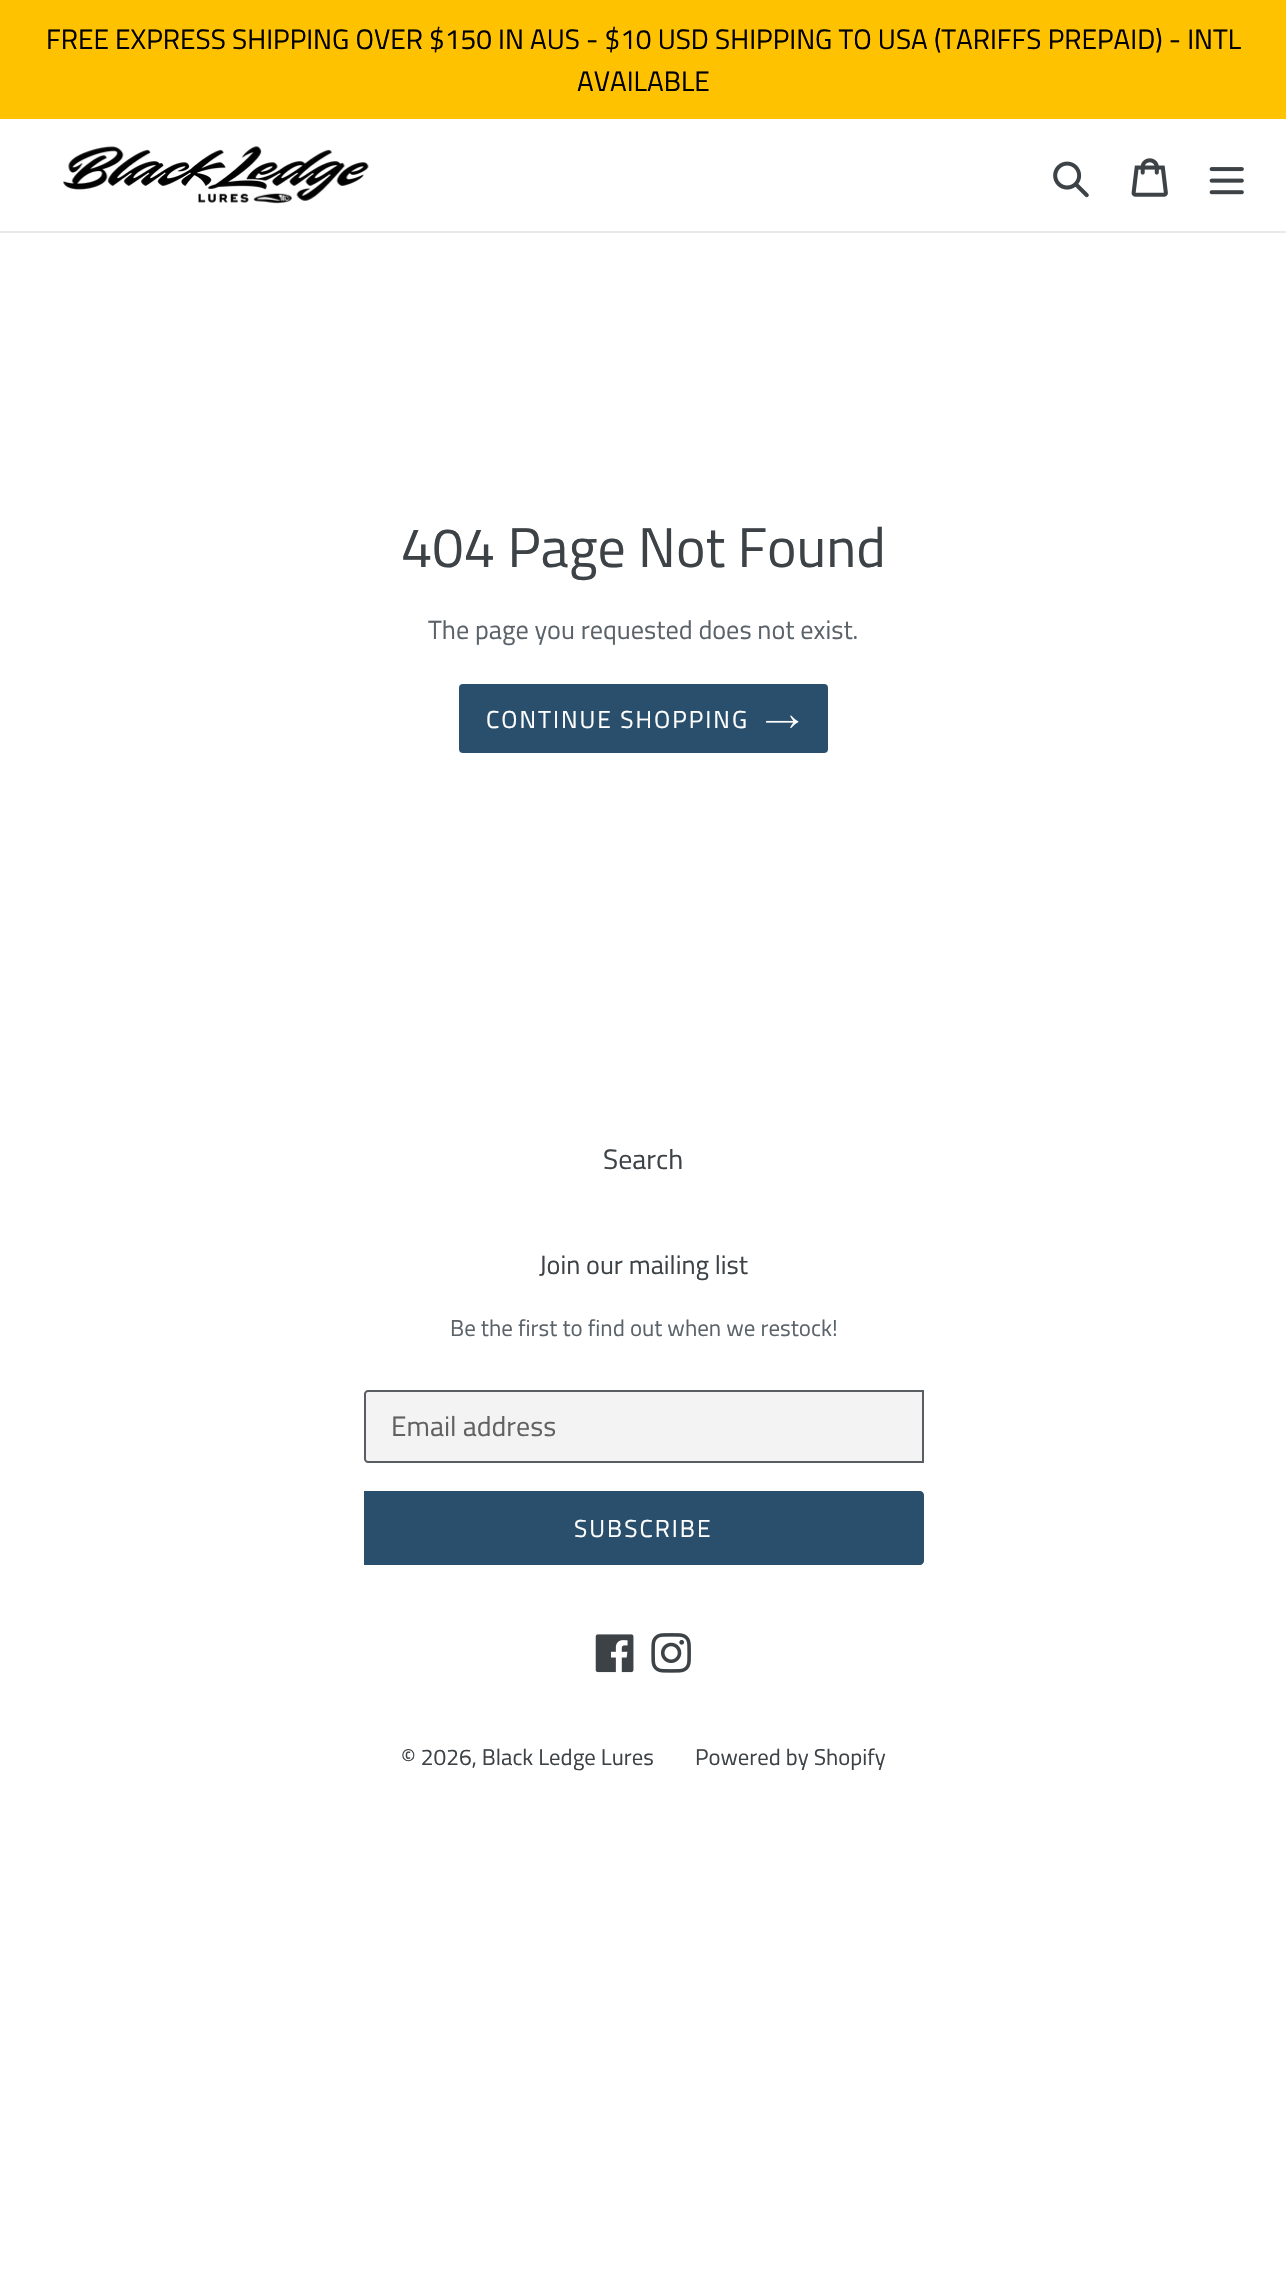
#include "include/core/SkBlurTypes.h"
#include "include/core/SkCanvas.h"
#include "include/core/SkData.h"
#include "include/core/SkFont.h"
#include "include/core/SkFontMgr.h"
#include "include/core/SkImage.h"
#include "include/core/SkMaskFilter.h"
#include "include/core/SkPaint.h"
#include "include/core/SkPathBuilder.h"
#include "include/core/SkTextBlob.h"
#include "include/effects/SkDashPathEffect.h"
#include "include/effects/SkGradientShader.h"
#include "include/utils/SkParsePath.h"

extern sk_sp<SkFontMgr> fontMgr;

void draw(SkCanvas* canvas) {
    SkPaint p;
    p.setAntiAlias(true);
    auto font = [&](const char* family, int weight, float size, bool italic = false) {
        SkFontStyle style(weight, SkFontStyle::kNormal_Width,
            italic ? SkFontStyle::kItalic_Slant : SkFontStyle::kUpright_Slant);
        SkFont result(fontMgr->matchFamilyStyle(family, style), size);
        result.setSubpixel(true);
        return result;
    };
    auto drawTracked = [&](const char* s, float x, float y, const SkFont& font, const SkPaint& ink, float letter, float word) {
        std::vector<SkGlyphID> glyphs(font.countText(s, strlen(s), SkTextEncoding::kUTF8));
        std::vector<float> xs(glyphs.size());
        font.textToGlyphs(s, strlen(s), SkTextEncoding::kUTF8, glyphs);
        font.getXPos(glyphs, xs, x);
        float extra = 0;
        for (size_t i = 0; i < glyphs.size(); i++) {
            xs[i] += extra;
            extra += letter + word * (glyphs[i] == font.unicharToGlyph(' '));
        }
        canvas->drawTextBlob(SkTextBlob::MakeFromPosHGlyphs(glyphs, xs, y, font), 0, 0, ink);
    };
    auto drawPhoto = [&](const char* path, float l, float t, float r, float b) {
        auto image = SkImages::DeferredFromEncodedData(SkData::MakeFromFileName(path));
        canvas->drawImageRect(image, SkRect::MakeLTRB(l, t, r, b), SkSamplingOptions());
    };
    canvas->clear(0xFFFFFFFF);
    p.setColor(0xFFFFC200);
    canvas->drawRect(SkRect::MakeLTRB(0, 0, 1286, 119), p);
    auto font1 = font("Titillium Web", 400, 28);
    p.setColor(0xFF000000);
    canvas->drawString("FREE EXPRESS SHIPPING OVER $150 IN AUS - $10 USD SHIPPING TO USA (TARIFFS PREPAID) - INTL", 46, 49, font1, p);
    canvas->drawString("AVAILABLE", 577, 91, font1, p);
    p.setColor(0xFFE8E9EB);
    canvas->drawRect(SkRect::MakeLTRB(0, 231, 1286, 233), p);
    drawPhoto("media/1.png", 63, 146, 369, 204);
    drawPhoto("media/2.png", 1053, 161, 1089, 198);
    drawPhoto("media/3.png", 1131, 158, 1168, 197);
    drawPhoto("media/4.png", 1209, 167, 1244, 195);
    auto font2 = font("Titillium Web", 400, 56);
    p.setColor(0xFF3D4246);
    canvas->drawString("404 Page Not Found", 401, 567, font2, p);
    auto font3 = font("Titillium Web", 400, 26.25f);
    p.setColor(0xFF5B636A);
    canvas->drawString("The page you requested does not exist.", 428, 639, font3, p);
    p.setColor(0xFF294F6C);
    canvas->drawRoundRect(SkRect::MakeLTRB(459, 684, 828, 753), 4, 4, p);
    auto font4 = font("Titillium Web", 400, 24.5f);
    p.setColor(0xFFFFFFFF);
    drawTracked("CONTINUE SHOPPING", 486, 728, font4, p, 2, 0);
    drawPhoto("media/5.png", 766, 715, 799, 728);
    p.setColor(0xFF3D4246);
    canvas->drawString("Search", 603, 1169, font1, p);
    canvas->drawString("Join our mailing list", 539, 1274, font3, p);
    auto font5 = font("Titillium Web", 400, 23);
    p.setColor(0xFF5B636A);
    canvas->drawString("Be the first to find out when we restock!", 450, 1336, font5, p);
    p.setColor(0xFFF3F3F3);
    canvas->drawPath(SkPathBuilder().moveTo(368, 1390).lineTo(924, 1390).lineTo(924, 1463).lineTo(368, 1463).cubicTo(366, 1463, 364, 1461, 364, 1459).lineTo(364, 1394).cubicTo(364, 1392, 366, 1390, 368, 1390).close().detach(), p);
    p.setStyle(SkPaint::kStroke_Style);
    p.setStrokeWidth(2);
    p.setColor(0xD93D4246);
    canvas->drawPath(SkPathBuilder().moveTo(368, 1391).lineTo(923, 1391).lineTo(923, 1462).lineTo(368, 1462).cubicTo(366.5f, 1462, 365, 1460.5f, 365, 1459).lineTo(365, 1394).cubicTo(365, 1392.5f, 366.5f, 1391, 368, 1391).close().detach(), p);
    p.setStyle(SkPaint::kFill_Style);
    p.setColor(0xFF616161);
    canvas->drawString("Email address", 391, 1436, font1, p);
    p.setColor(0xFF294F6C);
    canvas->drawPath(SkPathBuilder().moveTo(364, 1491).lineTo(920, 1491).cubicTo(922, 1491, 924, 1493, 924, 1495).lineTo(924, 1561).cubicTo(924, 1563, 922, 1565, 920, 1565).lineTo(364, 1565).close().detach(), p);
    p.setColor(0xFFFFFFFF);
    drawTracked("SUBSCRIBE", 574, 1537, font4, p, 2, 0);
    drawPhoto("media/6.png", 595, 1634, 634, 1673);
    drawPhoto("media/7.png", 651, 1633, 691, 1673);
    auto font6 = font("Titillium Web", 400, 22.75f);
    p.setColor(0xFF3D4246);
    canvas->drawString("© 2026, Black Ledge Lures", 401, 1765, font6, p);
    canvas->drawString("Powered by Shopify", 695, 1765, font6, p);
}
